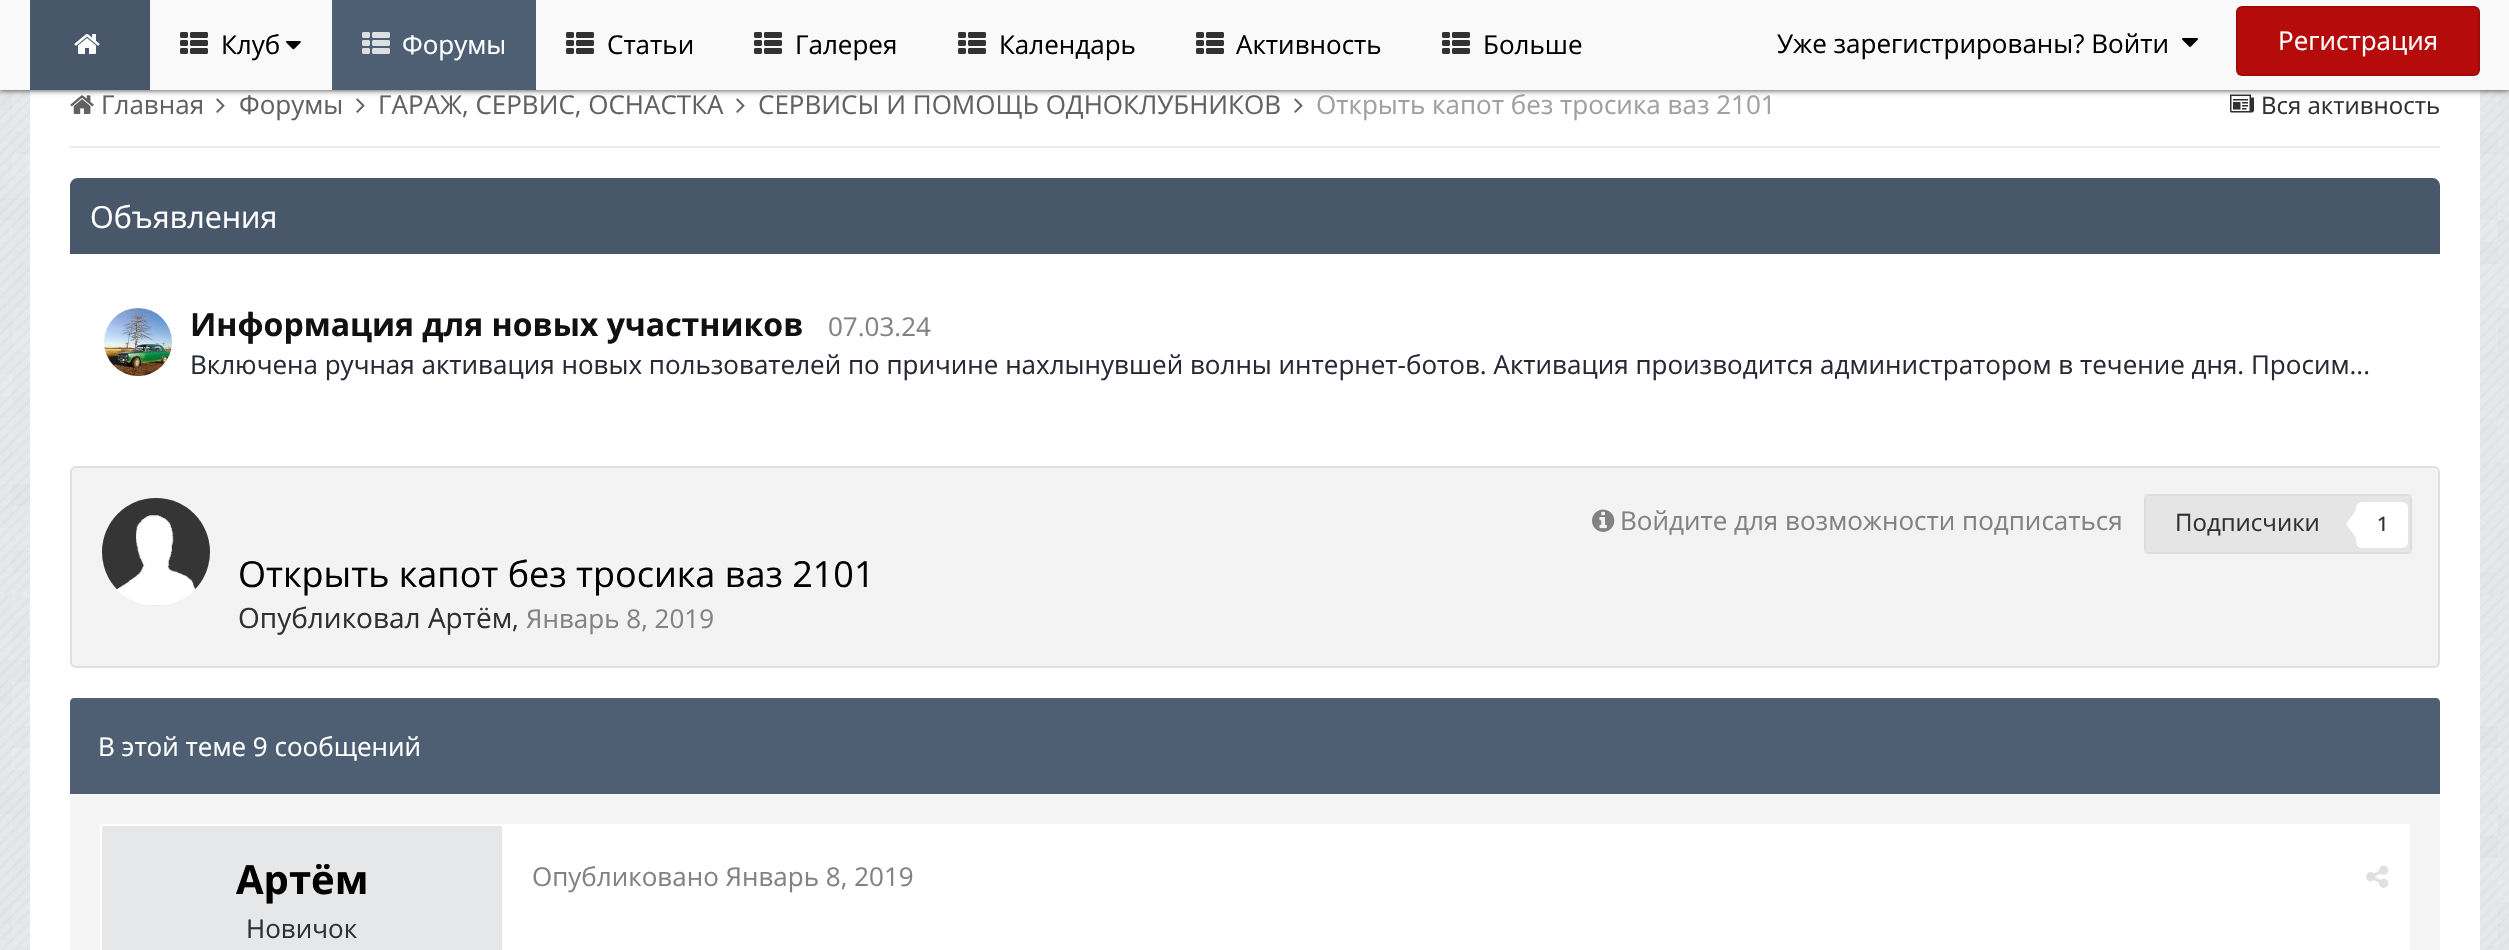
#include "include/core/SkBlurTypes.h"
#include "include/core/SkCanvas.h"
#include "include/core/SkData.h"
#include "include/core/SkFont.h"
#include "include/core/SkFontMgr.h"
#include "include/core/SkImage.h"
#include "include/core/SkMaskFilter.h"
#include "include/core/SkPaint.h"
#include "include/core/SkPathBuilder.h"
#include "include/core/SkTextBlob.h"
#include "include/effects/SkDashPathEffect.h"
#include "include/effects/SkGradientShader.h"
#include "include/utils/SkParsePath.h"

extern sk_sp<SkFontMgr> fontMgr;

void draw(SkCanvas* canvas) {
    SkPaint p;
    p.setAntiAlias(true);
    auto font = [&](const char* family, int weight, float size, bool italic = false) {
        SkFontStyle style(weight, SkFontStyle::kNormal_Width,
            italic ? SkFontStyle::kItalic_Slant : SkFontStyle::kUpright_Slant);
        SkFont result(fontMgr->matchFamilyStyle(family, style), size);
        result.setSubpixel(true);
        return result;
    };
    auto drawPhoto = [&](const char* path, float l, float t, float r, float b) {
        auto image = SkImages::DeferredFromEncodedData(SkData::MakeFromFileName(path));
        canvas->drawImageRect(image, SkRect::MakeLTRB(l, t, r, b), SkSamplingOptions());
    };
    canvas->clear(0xFFEBEEF2);
    drawPhoto("media/1.png", 0, 90, 2509, 950);
    p.setColor(0xFFFFFFFF);
    canvas->drawRect(SkRect::MakeLTRB(30, 90, 2480, 950), p);
    drawPhoto("media/7.png", 70, 95, 94, 114);
    drawPhoto("media/8.png", 216, 98, 225, 113);
    drawPhoto("media/8.png", 356, 98, 365, 113);
    drawPhoto("media/8.png", 736, 98, 745, 113);
    drawPhoto("media/8.png", 1294, 98, 1303, 113);
    drawPhoto("media/9.png", 2230, 94, 2254, 113);
    p.setColor(0xCC000000);
    p.setMaskFilter(SkMaskFilter::MakeBlur(kNormal_SkBlurStyle, 3));
    canvas->drawRect(SkRect::MakeLTRB(0, 0, 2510, 90), p);
    p.setMaskFilter(nullptr);
    p.setColor(0xFFF9F9F9);
    canvas->drawRect(SkRect::MakeLTRB(0, 0, 2509, 90), p);
    p.setColor(0xFF485769);
    canvas->drawRect(SkRect::MakeLTRB(30, 0, 150, 90), p);
    drawPhoto("media/2.png", 74, 34, 100, 54);
    drawPhoto("media/3.png", 180, 32, 208, 54);
    auto font1 = font("Open Sans", 400, 26);
    p.setColor(0xFF000000);
    canvas->drawString("Клуб", 221, 54, font1, p);
    drawPhoto("media/4.png", 286, 41, 301, 50);
    p.setColor(0xFF4E5F74);
    canvas->drawRect(SkRect::MakeLTRB(332, 0, 536, 90), p);
    drawPhoto("media/5.png", 362, 32, 390, 54);
    p.setColor(0xFFFFFFFF);
    canvas->drawString("Форумы", 402, 54, font1, p);
    drawPhoto("media/3.png", 566, 32, 594, 54);
    p.setColor(0xFF000000);
    canvas->drawString("Статьи", 607, 54, font1, p);
    drawPhoto("media/3.png", 754, 32, 782, 54);
    canvas->drawString("Галерея", 795, 54, font1, p);
    drawPhoto("media/3.png", 958, 32, 986, 54);
    canvas->drawString("Календарь", 999, 54, font1, p);
    drawPhoto("media/3.png", 1196, 32, 1224, 54);
    canvas->drawString("Активность", 1236, 54, font1, p);
    drawPhoto("media/3.png", 1442, 32, 1470, 54);
    canvas->drawString("Больше", 1483, 54, font1, p);
    canvas->drawString("Уже зарегистрированы? Войти", 1777, 53, font1, p);
    drawPhoto("media/6.png", 2182, 38, 2198, 47);
    p.setColor(0xFFB50B0B);
    canvas->drawRoundRect(SkRect::MakeLTRB(2236, 6, 2480, 76), 6, 6, p);
    p.setStyle(SkPaint::kStroke_Style);
    p.setStrokeWidth(2);
    p.setColor(0x1A000000);
    canvas->drawRoundRect(SkRect::MakeLTRB(2237, 7, 2479, 75), 5, 5, p);
    p.setStyle(SkPaint::kFill_Style);
    p.setColor(0xFFFFFFFF);
    canvas->drawString("Регистрация", 2278, 50, font1, p);
    p.setColor(0xFFECECEC);
    canvas->drawRect(SkRect::MakeLTRB(70, 146, 2440, 148), p);
    p.setColor(0xFF616161);
    {
        const struct { const char* s; float x, y; } items[] = {
            {"Главная", 101, 114},
            {"Форумы", 239, 114},
            {"ГАРАЖ, СЕРВИС, ОСНАСТКА", 378, 114},
            {"СЕРВИСЫ И ПОМОЩЬ ОДНОКЛУБНИКОВ", 758, 114},
        };
        for (auto [s, x, y] : items) {
            canvas->drawString(s, x, y, font1, p);
        }
    }
    p.setColor(0xFFA0A0A0);
    canvas->drawString("Открыть капот без тросика ваз 2101", 1316, 114, font1, p);
    auto font2 = font("Open Sans", 400, 24);
    p.setColor(0xFF303030);
    canvas->drawString("Вся активность", 2261, 114, font2, p);
    p.setColor(0xFF485769);
    canvas->drawPath(SkPathBuilder().moveTo(78, 178).lineTo(2432, 178).cubicTo(2436.5f, 178, 2440, 181.5f, 2440, 186).lineTo(2440, 254).lineTo(70, 254).lineTo(70, 186).cubicTo(70, 181.5f, 73.5f, 178, 78, 178).close().detach(), p);
    auto font3 = font("Open Sans", 400, 30.5f);
    p.setColor(0xFFFFFFFF);
    canvas->drawString("Объявления", 90, 228, font3, p);
    drawPhoto("media/10.png", 104, 308, 172, 376);
    auto font4 = font("Open Sans", 700, 32);
    p.setColor(0xFF111111);
    canvas->drawString("Информация для новых участников", 190, 336, font4, p);
    p.setColor(0xFF828282);
    canvas->drawString("07.03.24", 828, 336, font1, p);
    p.setColor(0xFF272A34);
    canvas->drawString("Включена ручная активация новых пользователей по причине нахлынувшей волны интернет-ботов. Активация производится администратором в течение дня. Просим...", 190, 374, font1, p);
    p.setColor(0xFFF3F3F3);
    canvas->drawRoundRect(SkRect::MakeLTRB(71, 467, 2439, 667), 5, 5, p);
    p.setStyle(SkPaint::kStroke_Style);
    p.setColor(0xFFE0E0E0);
    canvas->drawRoundRect(SkRect::MakeLTRB(71, 467, 2439, 667), 5, 5, p);
    drawPhoto("media/11.png", 1592, 509, 1615, 532);
    p.setStyle(SkPaint::kFill_Style);
    p.setColor(0xFF828282);
    canvas->drawString("Войдите для возможности подписаться", 1620, 530, font1, p);
    p.setColor(0xFFE5E5E5);
    canvas->drawRoundRect(SkRect::MakeLTRB(2144, 494, 2412, 554), 6, 6, p);
    p.setStyle(SkPaint::kStroke_Style);
    p.setColor(0x08000000);
    canvas->drawRect(SkRect::MakeLTRB(2145, 495, 2411, 553), p);
    p.setStyle(SkPaint::kFill_Style);
    p.setColor(0xFF303030);
    canvas->drawString("Подписчики", 2175, 531, font2, p);
    p.setColor(0xFFFFFFFF);
    canvas->drawRoundRect(SkRect::MakeLTRB(2356, 502, 2408, 548), 6, 6, p);
    canvas->drawPath(SkPathBuilder().moveTo(2356, 510).lineTo(2356, 538).lineTo(2346, 524).close().detach(), p);
    auto font5 = font("Open Sans", 500, 20);
    p.setColor(0xFF303030);
    canvas->drawString("1", 2377, 531, font5, p);
    drawPhoto("media/12.png", 102, 498, 210, 606);
    auto font6 = font("Open Sans", 400, 36);
    p.setColor(0xFF000000);
    canvas->drawString("Открыть капот без тросика ваз 2101", 238, 587, font6, p);
    auto font7 = font("Open Sans", 400, 28);
    p.setColor(0xFF303030);
    canvas->drawString("Опубликовал Артём", 238, 628, font7, p);
    canvas->drawString(",", 512, 628, font1, p);
    p.setColor(0xFF828282);
    canvas->drawString("Январь 8, 2019", 526, 628, font1, p);
    p.setColor(0xFF4E5F74);
    canvas->drawPath(SkPathBuilder().moveTo(74, 698).lineTo(2436, 698).cubicTo(2438, 698, 2440, 700, 2440, 702).lineTo(2440, 794).lineTo(70, 794).lineTo(70, 702).cubicTo(70, 700, 72, 698, 74, 698).close().detach(), p);
    p.setColor(0xFFFFFFFF);
    canvas->drawString("В этой теме 9 сообщений", 98, 756, font1, p);
    {
        const struct { float l, t, r, b; SkColor color; } items[] = {
            {70, 794, 2440, 950, 0xFFF5F5F5},
            {100, 824, 2410, 950, 0xFFFFFFFF},
            {102, 826, 502, 950, 0xFFE6E7E9},
        };
        for (auto [l, t, r, b, color] : items) {
            p.setColor(color);
            canvas->drawRect(SkRect::MakeLTRB(l, t, r, b), p);
        }
    }
    auto font8 = font("Open Sans", 700, 40);
    p.setColor(0xFF000000);
    canvas->drawString("Артём", 236, 894, font8, p);
    p.setColor(0xFF303030);
    canvas->drawString("Новичок", 246, 938, font1, p);
    p.setColor(0xFF828282);
    canvas->drawString("Опубликовано Январь 8, 2019", 532, 886, font1, p);
    drawPhoto("media/13.png", 2366, 865, 2389, 888);
}
